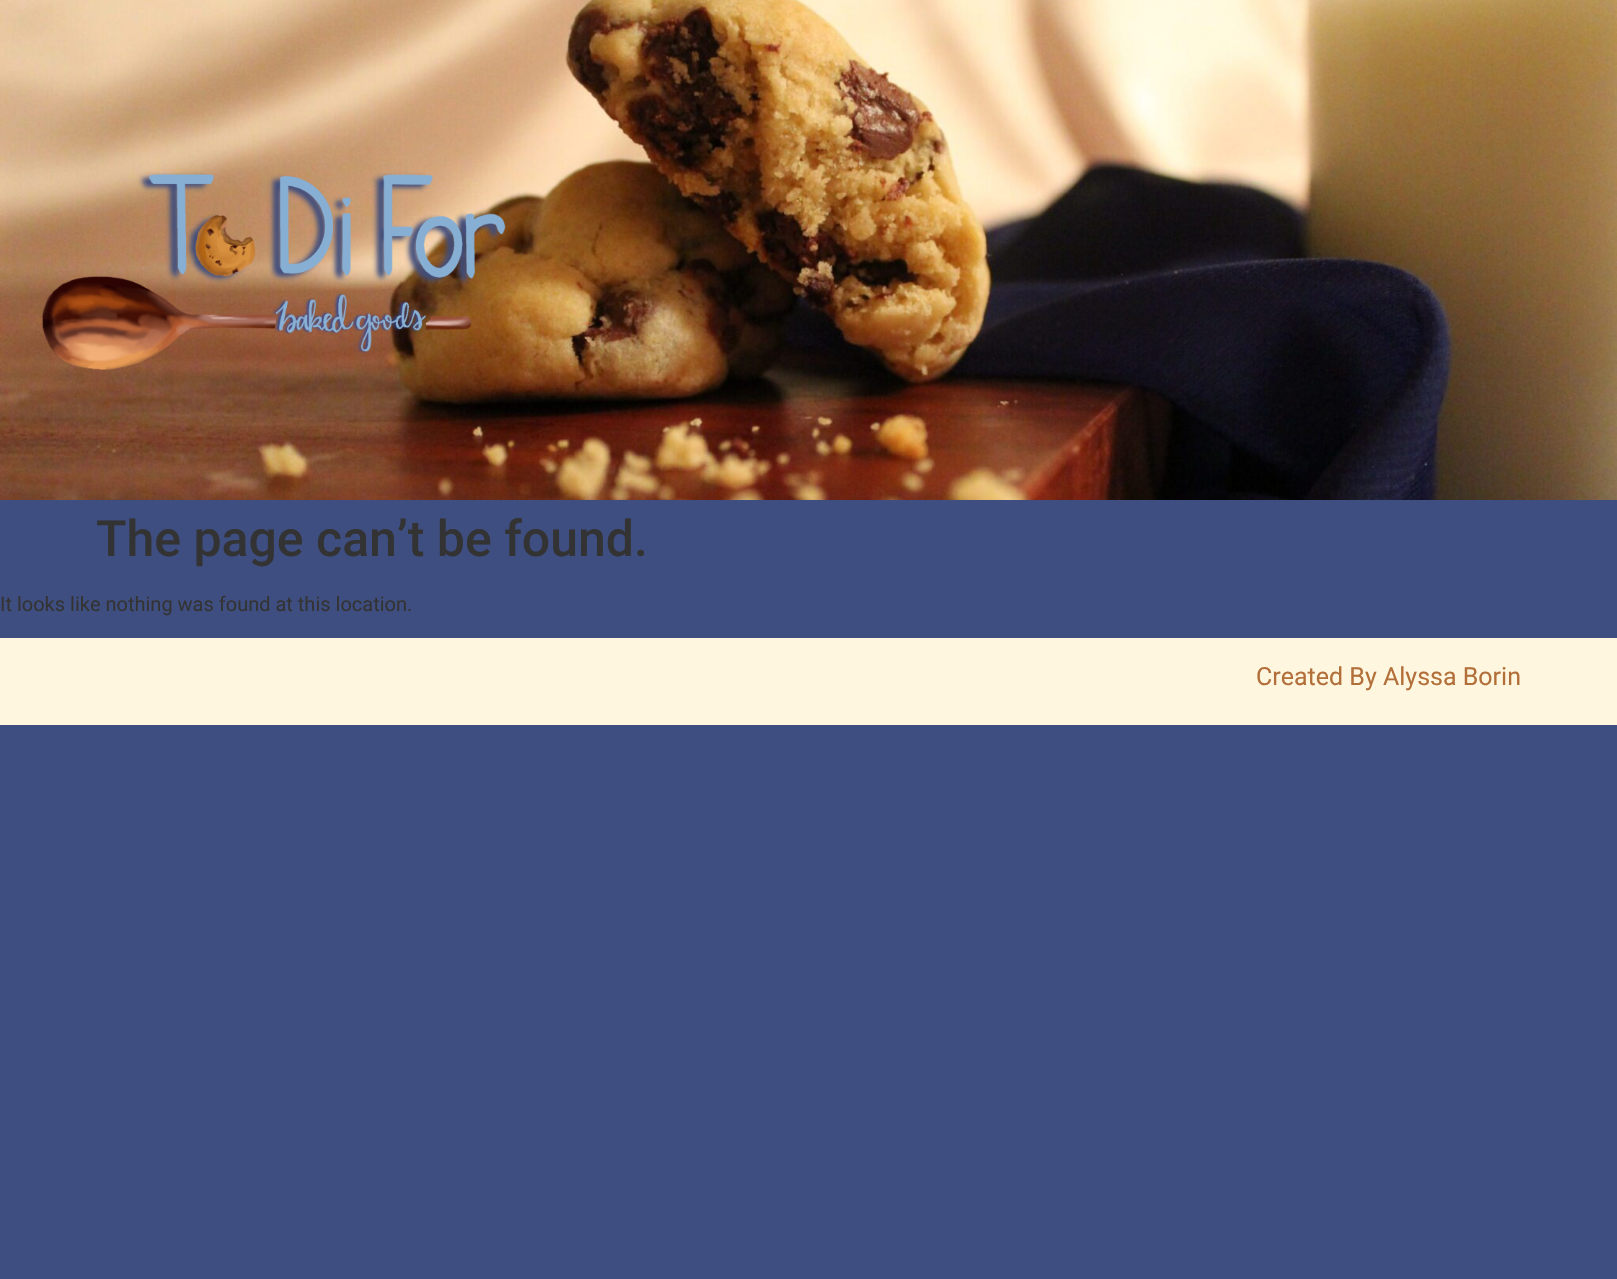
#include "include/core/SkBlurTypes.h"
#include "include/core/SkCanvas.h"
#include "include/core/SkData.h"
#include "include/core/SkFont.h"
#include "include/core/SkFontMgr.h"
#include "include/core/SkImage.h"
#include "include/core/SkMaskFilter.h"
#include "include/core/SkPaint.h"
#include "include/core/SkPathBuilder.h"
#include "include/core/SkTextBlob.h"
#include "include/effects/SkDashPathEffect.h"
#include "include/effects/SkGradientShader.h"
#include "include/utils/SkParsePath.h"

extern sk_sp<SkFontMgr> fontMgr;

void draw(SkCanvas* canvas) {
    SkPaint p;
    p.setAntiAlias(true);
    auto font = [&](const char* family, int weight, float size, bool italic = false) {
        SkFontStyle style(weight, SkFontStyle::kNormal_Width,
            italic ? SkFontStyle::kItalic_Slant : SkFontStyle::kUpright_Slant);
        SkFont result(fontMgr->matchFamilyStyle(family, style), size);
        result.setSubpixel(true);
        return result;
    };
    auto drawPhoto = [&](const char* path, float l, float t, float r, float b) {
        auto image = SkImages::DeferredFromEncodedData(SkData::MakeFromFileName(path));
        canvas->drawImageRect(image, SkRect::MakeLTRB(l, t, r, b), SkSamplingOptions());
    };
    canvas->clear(0xFF3E4E81);
    drawPhoto("media/1.png", 0, 0, 1617, 500);
    drawPhoto("media/2.png", 42, 172, 506, 370);
    auto font1 = font("Roboto", 500, 50);
    p.setColor(0xFF333333);
    canvas->drawString("The page can’t be found.", 96, 556, font1, p);
    auto font2 = font("Roboto", 400, 20);
    canvas->drawString("It looks like nothing was found at this location.", 0, 611, font2, p);
    p.setColor(0xFFFFF6DF);
    canvas->drawRect(SkRect::MakeLTRB(0, 638, 1617, 725), p);
    auto font3 = font("Roboto", 400, 25);
    p.setColor(0xFFB36F39);
    canvas->drawString("Created By Alyssa Borin", 1256, 685, font3, p);
}
